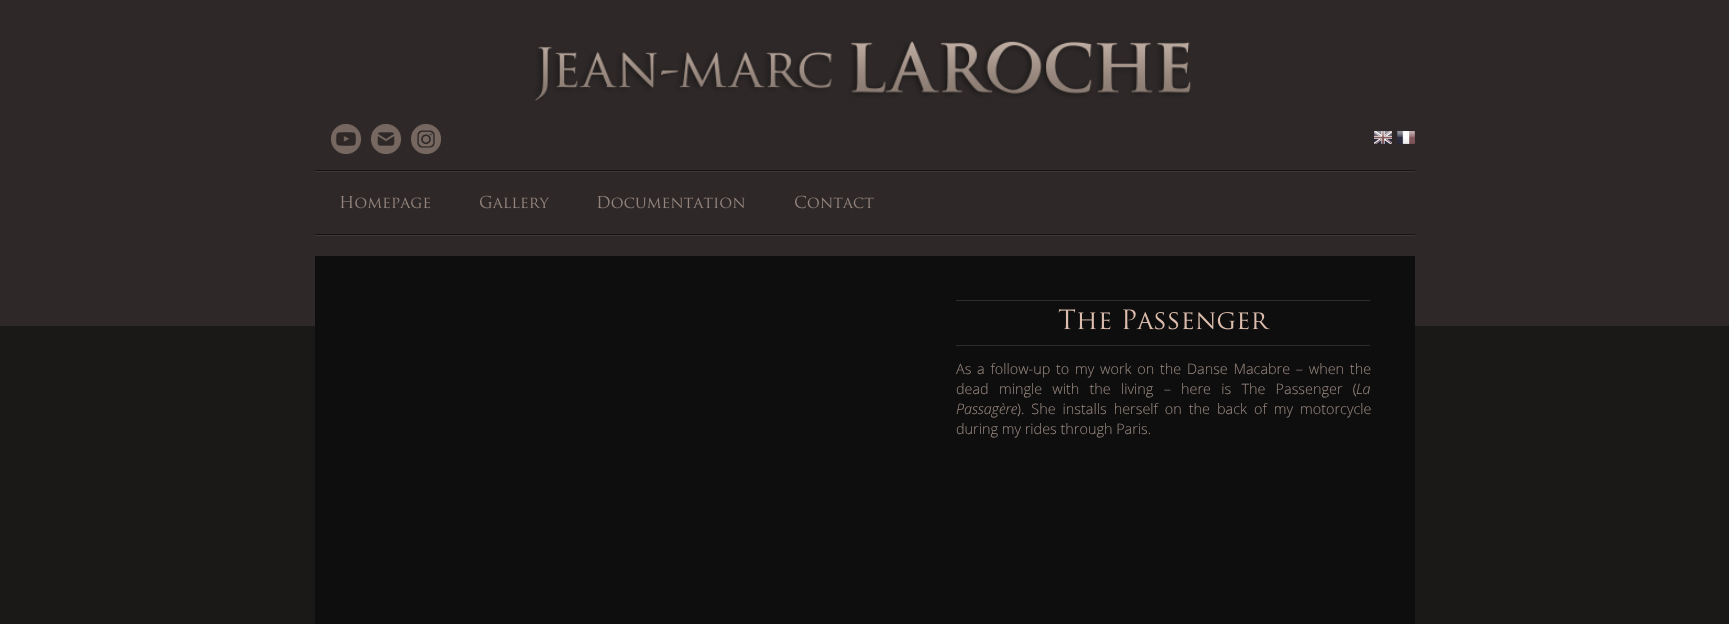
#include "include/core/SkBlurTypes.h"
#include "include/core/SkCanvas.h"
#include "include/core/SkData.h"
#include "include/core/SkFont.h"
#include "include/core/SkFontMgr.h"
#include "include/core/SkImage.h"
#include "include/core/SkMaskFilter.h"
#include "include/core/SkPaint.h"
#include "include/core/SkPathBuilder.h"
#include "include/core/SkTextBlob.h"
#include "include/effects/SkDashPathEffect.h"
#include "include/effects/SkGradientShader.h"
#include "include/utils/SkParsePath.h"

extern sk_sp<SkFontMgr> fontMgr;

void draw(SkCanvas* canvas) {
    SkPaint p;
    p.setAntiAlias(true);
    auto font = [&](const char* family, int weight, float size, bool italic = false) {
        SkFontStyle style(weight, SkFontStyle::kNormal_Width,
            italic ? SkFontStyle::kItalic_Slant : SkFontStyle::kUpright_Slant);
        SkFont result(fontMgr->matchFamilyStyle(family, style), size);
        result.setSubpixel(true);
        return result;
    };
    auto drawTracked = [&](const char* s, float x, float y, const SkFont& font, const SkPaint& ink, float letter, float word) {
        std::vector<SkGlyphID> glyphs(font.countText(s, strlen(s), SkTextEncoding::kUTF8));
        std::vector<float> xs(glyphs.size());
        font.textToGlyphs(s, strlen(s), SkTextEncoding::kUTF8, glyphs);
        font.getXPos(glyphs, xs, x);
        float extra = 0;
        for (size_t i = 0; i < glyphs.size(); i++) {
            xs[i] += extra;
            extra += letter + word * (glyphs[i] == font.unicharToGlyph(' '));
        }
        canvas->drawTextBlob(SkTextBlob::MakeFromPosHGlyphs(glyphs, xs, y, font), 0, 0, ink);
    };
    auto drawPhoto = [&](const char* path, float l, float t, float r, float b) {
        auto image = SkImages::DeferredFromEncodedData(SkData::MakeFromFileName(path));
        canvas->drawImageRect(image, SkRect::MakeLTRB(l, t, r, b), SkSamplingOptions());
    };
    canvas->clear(0xFF2E2928);
    drawPhoto("media/1.png", 535, 40, 1191, 101);
    drawPhoto("media/2.png", 331, 124, 361, 154);
    drawPhoto("media/3.png", 371, 124, 401, 154);
    drawPhoto("media/4.png", 411, 124, 441, 154);
    drawPhoto("media/5.png", 1374, 131, 1392, 144);
    drawPhoto("media/6.png", 1397, 131, 1415, 144);
    drawPhoto("media/7.png", 315, 234, 1415, 236);
    drawPhoto("media/7.png", 315, 170, 1415, 172);
    drawPhoto("media/8.png", 340, 195, 431, 209);
    drawPhoto("media/9.png", 480, 195, 550, 209);
    drawPhoto("media/10.png", 597, 195, 745, 209);
    drawPhoto("media/11.png", 795, 195, 874, 209);
    {
        const struct { float l, t, r, b; SkColor color; } items[] = {
            {0, 326, 1729, 624, 0xFF1B1818},
            {315, 256, 1415, 624, 0xFF0F0E0E},
            {956, 300, 1370, 301, 0xFF302B28},
            {956, 345, 1370, 346, 0xFF302B28},
        };
        for (auto [l, t, r, b, color] : items) {
            p.setColor(color);
            canvas->drawRect(SkRect::MakeLTRB(l, t, r, b), p);
        }
    }
    drawPhoto("media/12.png", 1058, 309, 1270, 330);
    auto font1 = font("Open Sans", 300, 14.4f);
    p.setColor(0xFF94847D);
    drawTracked("As a follow-up to my work on the Danse Macabre – when the", 956, 374, font1, p, 0, 2);
    drawTracked("dead mingle with the living – here is The Passenger (", 956, 394, font1, p, 0, 6.5f);
    auto font2 = font("Open Sans", 300, 14.4f, true);
    canvas->drawString("La", 1356, 394, font2, p);
    canvas->drawString("Passagère", 956, 414, font2, p);
    drawTracked("). She installs herself on the back of my motorcycle", 1017, 414, font1, p, 0, 3.25f);
    canvas->drawString("during my rides through Paris.", 956, 434, font1, p);
}
